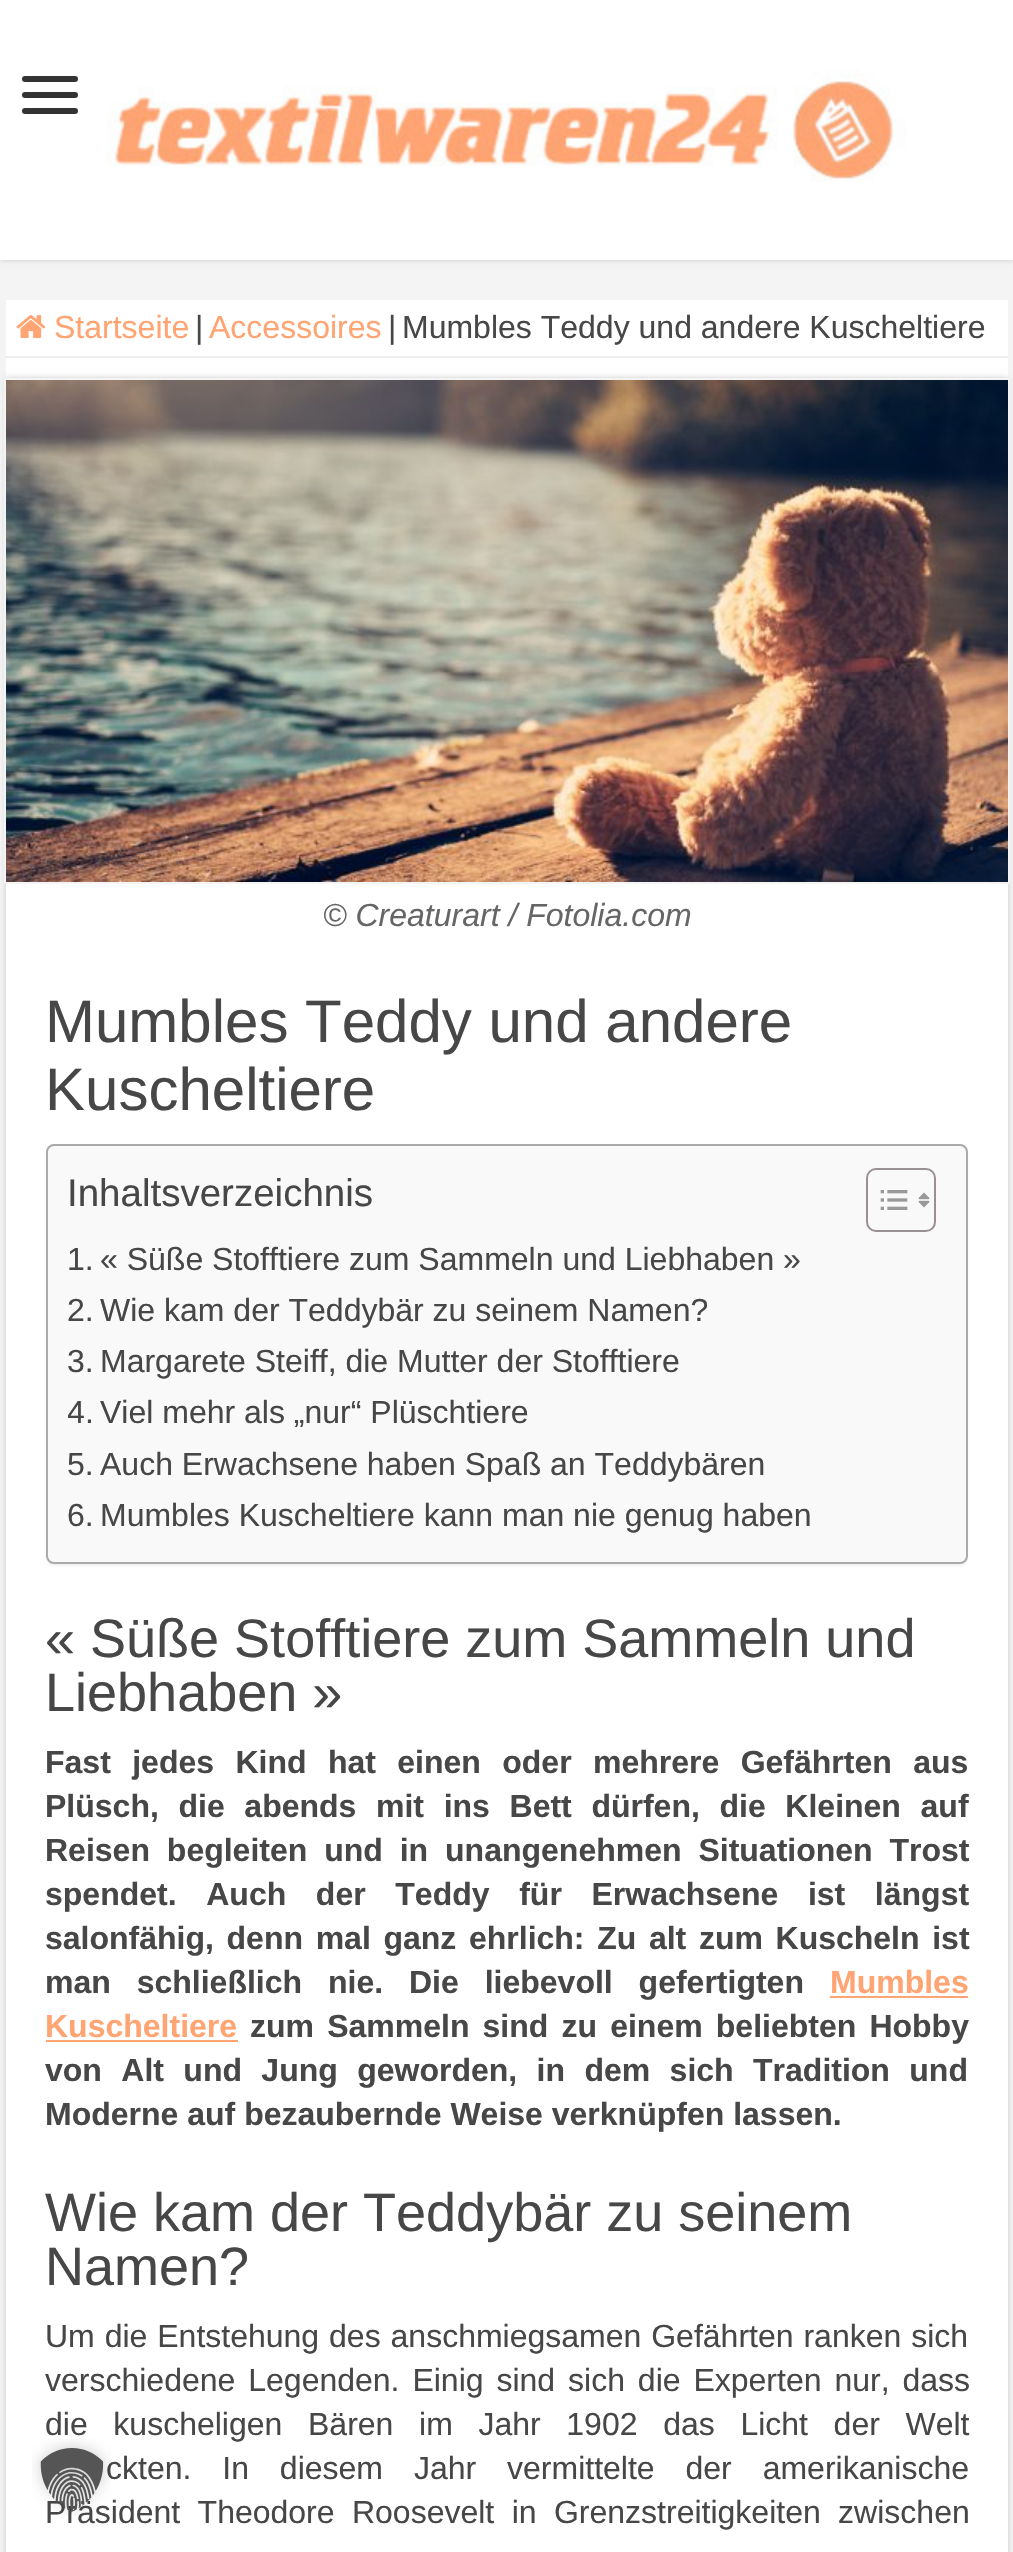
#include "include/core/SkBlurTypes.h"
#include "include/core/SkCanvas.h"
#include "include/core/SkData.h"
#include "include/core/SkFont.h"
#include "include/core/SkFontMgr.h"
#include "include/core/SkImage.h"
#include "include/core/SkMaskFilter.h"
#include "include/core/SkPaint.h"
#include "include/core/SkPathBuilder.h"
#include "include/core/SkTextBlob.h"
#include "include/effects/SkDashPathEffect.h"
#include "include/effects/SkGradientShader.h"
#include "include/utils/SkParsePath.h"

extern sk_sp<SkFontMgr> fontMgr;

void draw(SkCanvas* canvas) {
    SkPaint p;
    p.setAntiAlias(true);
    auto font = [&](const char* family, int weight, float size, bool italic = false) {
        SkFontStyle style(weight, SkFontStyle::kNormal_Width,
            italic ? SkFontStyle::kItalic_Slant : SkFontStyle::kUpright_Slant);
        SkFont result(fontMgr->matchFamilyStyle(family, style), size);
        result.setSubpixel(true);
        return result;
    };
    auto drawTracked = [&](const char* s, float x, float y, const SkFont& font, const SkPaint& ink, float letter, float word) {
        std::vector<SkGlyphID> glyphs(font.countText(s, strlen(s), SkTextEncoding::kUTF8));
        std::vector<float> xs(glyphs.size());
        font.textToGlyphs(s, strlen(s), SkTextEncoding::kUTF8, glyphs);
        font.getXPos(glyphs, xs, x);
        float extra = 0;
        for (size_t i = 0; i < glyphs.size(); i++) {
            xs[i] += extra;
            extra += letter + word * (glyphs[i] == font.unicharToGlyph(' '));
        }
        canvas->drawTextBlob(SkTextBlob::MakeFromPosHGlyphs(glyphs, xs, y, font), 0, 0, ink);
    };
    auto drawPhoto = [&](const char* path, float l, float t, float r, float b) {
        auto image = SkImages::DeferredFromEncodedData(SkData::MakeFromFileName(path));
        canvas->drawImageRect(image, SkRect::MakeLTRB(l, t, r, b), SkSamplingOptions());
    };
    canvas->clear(0xFFF4F4F4);
    p.setColor(0xFFCACACA);
    p.setMaskFilter(SkMaskFilter::MakeBlur(kNormal_SkBlurStyle, 3));
    canvas->drawRect(SkRect::MakeLTRB(0, 0, 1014, 260), p);
    p.setMaskFilter(nullptr);
    p.setColor(0xFFFFFFFF);
    canvas->drawRect(SkRect::MakeLTRB(0, 0, 1013, 260), p);
    p.setColor(0xFF333333);
    canvas->drawRoundRect(SkRect::MakeLTRB(22, 76, 78, 82), 3, 3, p);
    canvas->drawRoundRect(SkRect::MakeLTRB(22, 92, 78, 98), 3, 3, p);
    canvas->drawRoundRect(SkRect::MakeLTRB(22, 108, 78, 114), 3, 3, p);
    drawPhoto("media/1.png", 106, 70, 906, 182);
    p.setColor(0xFFFFFFFF);
    canvas->drawRect(SkRect::MakeLTRB(6, 300, 1008, 2552), p);
    p.setColor(0xFFEEEEEE);
    canvas->drawRect(SkRect::MakeLTRB(6, 356, 1008, 358), p);
    drawPhoto("media/2.png", 16, 315, 46, 338);
    auto font1 = font("Liberation Sans", 400, 32);
    p.setColor(0xFFFFA473);
    canvas->drawString("Startseite", 54, 338, font1, p);
    p.setColor(0xFF474747);
    canvas->drawString("|", 195, 338, font1, p);
    p.setColor(0xFFFFA473);
    canvas->drawString("Accessoires", 209, 338, font1, p);
    p.setColor(0xFF474747);
    canvas->drawString("|", 388, 338, font1, p);
    canvas->drawString("Mumbles Teddy und andere Kuscheltiere", 402, 338, font1, p);
    canvas->save();
    canvas->clipPath(SkPathBuilder(SkPathFillType::kEvenOdd).moveTo(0, 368).lineTo(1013, 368).lineTo(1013, 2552).lineTo(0, 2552).close().moveTo(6, 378).lineTo(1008, 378).lineTo(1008, 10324).lineTo(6, 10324).close().detach(), true);
    p.setColor(0xFFCACACA);
    p.setMaskFilter(SkMaskFilter::MakeBlur(kNormal_SkBlurStyle, 3));
    canvas->drawRect(SkRect::MakeLTRB(6, 378, 1008, 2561), p);
    p.setMaskFilter(nullptr);
    canvas->restore();
    p.setStyle(SkPaint::kStroke_Style);
    p.setStrokeWidth(2);
    p.setColor(0xFFF4F4F4);
    canvas->drawRect(SkRect::MakeLTRB(5, 379, 1009, 883), p);
    drawPhoto("media/3.png", 6, 380, 1008, 882);
    auto font2 = font("Liberation Sans", 400, 32, true);
    p.setStyle(SkPaint::kFill_Style);
    p.setColor(0xFF666666);
    canvas->drawString("© Creaturart / Fotolia.com", 323, 926, font2, p);
    auto font3 = font("Liberation Sans", 400, 60);
    p.setColor(0xFF474747);
    canvas->drawString("Mumbles Teddy und andere", 45, 1042, font3, p);
    canvas->drawString("Kuscheltiere", 45, 1110, font3, p);
    p.setColor(0x0D000000);
    p.setMaskFilter(SkMaskFilter::MakeBlur(kNormal_SkBlurStyle, 1));
    canvas->drawRoundRect(SkRect::MakeLTRB(46, 1146, 968, 1566), 8, 8, p);
    p.setMaskFilter(nullptr);
    p.setColor(0xFFF9F9F9);
    canvas->drawRoundRect(SkRect::MakeLTRB(47, 1145, 967, 1563), 7, 7, p);
    p.setStyle(SkPaint::kStroke_Style);
    p.setColor(0xFFAAAAAA);
    canvas->drawRoundRect(SkRect::MakeLTRB(47, 1145, 967, 1563), 7, 7, p);
    auto font4 = font("Liberation Sans", 400, 38.5f);
    p.setStyle(SkPaint::kFill_Style);
    p.setColor(0xFF474747);
    canvas->drawString("Inhaltsverzeichnis", 67, 1206, font4, p);
    p.setStyle(SkPaint::kStroke_Style);
    p.setColor(0xFF999191);
    canvas->drawRoundRect(SkRect::MakeLTRB(867, 1169, 935, 1231), 9, 9, p);
    drawPhoto("media/4.png", 880, 1190, 908, 1210);
    drawPhoto("media/5.png", 918, 1192, 930, 1208);
    p.setStyle(SkPaint::kFill_Style);
    p.setColor(0xFF474747);
    {
        const struct { const char* s; float x, y; } items[] = {
            {"1.", 67, 1270},
            {"« Süße Stofftiere zum Sammeln und Liebhaben »", 100, 1270},
            {"2.", 67, 1321},
            {"Wie kam der Teddybär zu seinem Namen?", 100, 1321},
            {"3.", 67, 1372},
            {"Margarete Steiff, die Mutter der Stofftiere", 100, 1372},
        };
        for (auto [s, x, y] : items) {
            canvas->drawString(s, x, y, font1, p);
        }
    }
    canvas->save();
    canvas->clipRect(SkRect::MakeLTRB(68, 1388, 926, 1438));
    canvas->drawString("4", 67, 1423, font1, p);
    canvas->restore();
    {
        const struct { const char* s; float x, y; } items[] = {
            {".", 85, 1423},
            {"Viel mehr als „nur“ Plüschtiere", 100, 1423},
            {"5.", 67, 1475},
            {"Auch Erwachsene haben Spaß an Teddybären", 100, 1475},
            {"6.", 67, 1526},
            {"Mumbles Kuscheltiere kann man nie genug haben", 100, 1526},
        };
        for (auto [s, x, y] : items) {
            canvas->drawString(s, x, y, font1, p);
        }
    }
    auto font5 = font("Liberation Sans", 400, 54);
    canvas->drawString("« Süße Stofftiere zum Sammeln und", 45, 1657, font5, p);
    canvas->drawString("Liebhaben »", 45, 1711, font5, p);
    auto font6 = font("Liberation Sans", 700, 32);
    drawTracked("Fast jedes Kind hat einen oder mehrere Gefährten aus", 45, 1773, font6, p, 0, 12.5f);
    drawTracked("Plüsch, die abends mit ins Bett dürfen, die Kleinen auf", 45, 1817, font6, p, 0, 10.75f);
    drawTracked("Reisen begleiten und in unangenehmen Situationen Trost", 45, 1861, font6, p, 0, 8);
    drawTracked("spendet. Auch der Teddy für Erwachsene ist längst", 45, 1905, font6, p, 0, 20.75f);
    drawTracked("salonfähig, denn mal ganz ehrlich: Zu alt zum Kuscheln ist", 45, 1949, font6, p, 0, 3.75f);
    drawTracked("man schließlich nie. Die liebevoll gefertigten", 45, 1993, font6, p, 0, 17);
    p.setColor(0xFFFFA473);
    canvas->drawString("Mumbles", 830, 1993, font6, p);
    canvas->drawRect(SkRect::MakeLTRB(830, 1996, 968, 1998), p);
    canvas->drawString("Kuscheltiere", 45, 2037, font6, p);
    canvas->drawRect(SkRect::MakeLTRB(46, 2040, 238, 2042), p);
    p.setColor(0xFF474747);
    drawTracked("zum Sammeln sind zu einem beliebten Hobby", 250, 2037, font6, p, 0, 4.25f);
    drawTracked("von Alt und Jung geworden, in dem sich Tradition und", 45, 2081, font6, p, 0, 10.5f);
    canvas->drawString("Moderne auf bezaubernde Weise verknüpfen lassen.", 45, 2125, font6, p);
    canvas->drawString("Wie kam der Teddybär zu seinem", 45, 2231, font5, p);
    canvas->drawString("Namen?", 45, 2285, font5, p);
    drawTracked("Um die Entstehung des anschmiegsamen Gefährten ranken sich", 45, 2347, font1, p, 0, 1);
    drawTracked("verschiedene Legenden. Einig sind sich die Experten nur, dass", 45, 2391, font1, p, 0, 4);
    drawTracked("die kuscheligen Bären im Jahr 1902 das Licht der Welt", 45, 2435, font1, p, 0, 16.75f);
    drawTracked("ckten. In diesem Jahr vermittelte der amerikanische", 106, 2479, font1, p, 0, 22);
    drawTracked("Präsident Theodore Roosevelt in Grenzstreitigkeiten zwischen", 45, 2523, font1, p, 0, 8.5f);
    drawPhoto("media/6.png", 32, 2439, 111, 2516);
}
